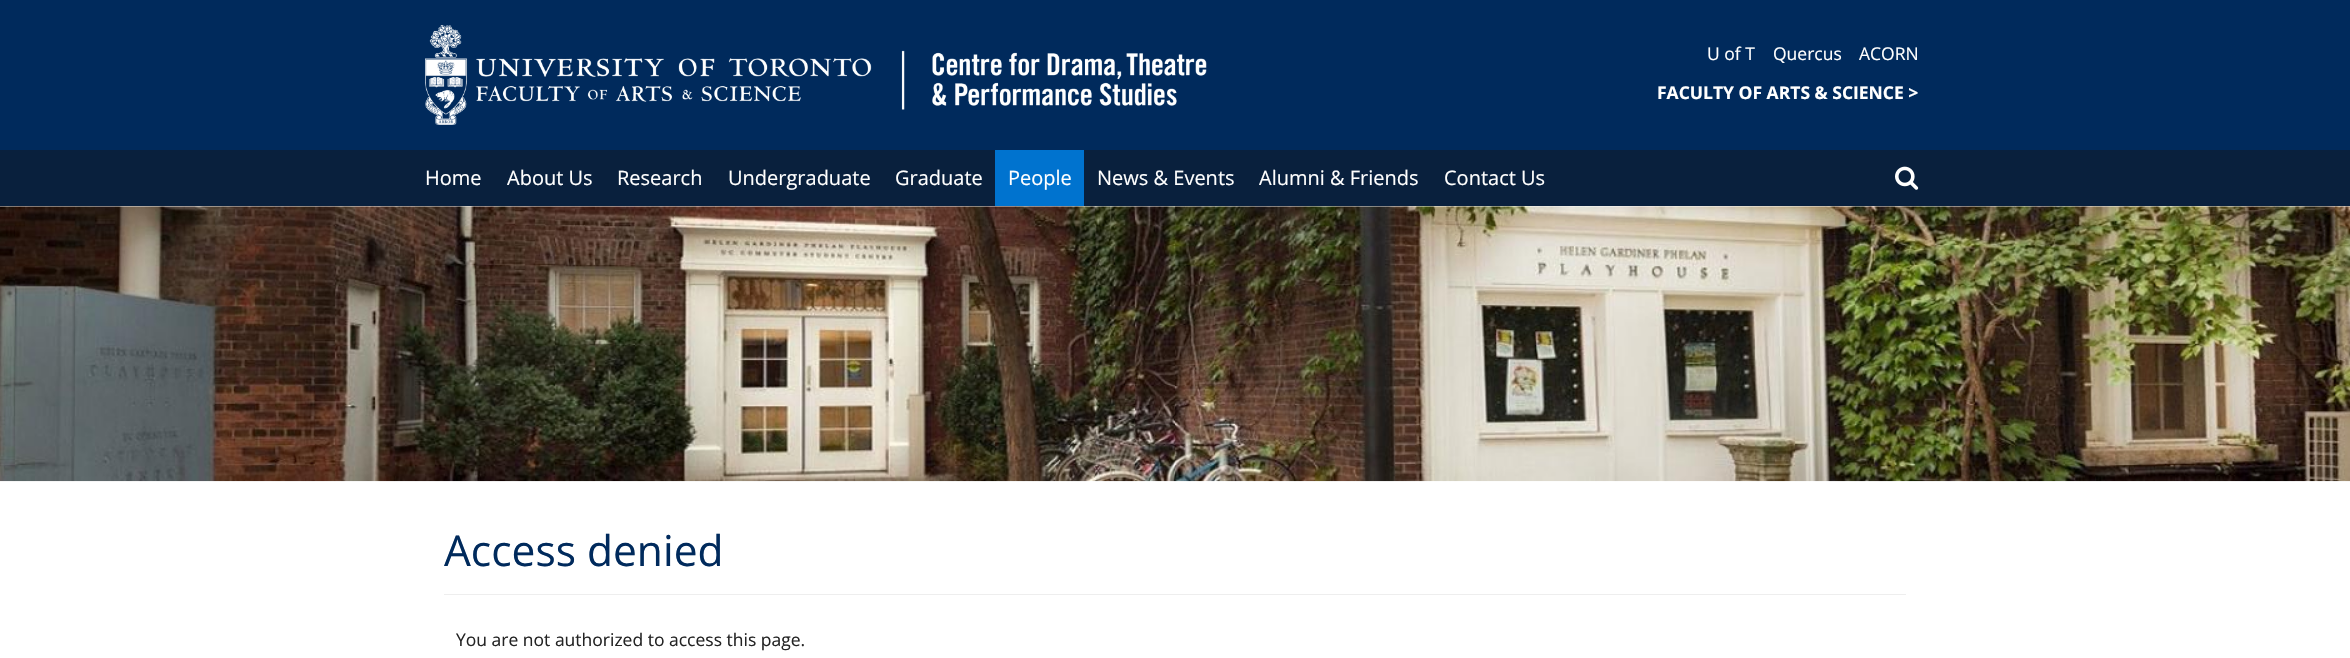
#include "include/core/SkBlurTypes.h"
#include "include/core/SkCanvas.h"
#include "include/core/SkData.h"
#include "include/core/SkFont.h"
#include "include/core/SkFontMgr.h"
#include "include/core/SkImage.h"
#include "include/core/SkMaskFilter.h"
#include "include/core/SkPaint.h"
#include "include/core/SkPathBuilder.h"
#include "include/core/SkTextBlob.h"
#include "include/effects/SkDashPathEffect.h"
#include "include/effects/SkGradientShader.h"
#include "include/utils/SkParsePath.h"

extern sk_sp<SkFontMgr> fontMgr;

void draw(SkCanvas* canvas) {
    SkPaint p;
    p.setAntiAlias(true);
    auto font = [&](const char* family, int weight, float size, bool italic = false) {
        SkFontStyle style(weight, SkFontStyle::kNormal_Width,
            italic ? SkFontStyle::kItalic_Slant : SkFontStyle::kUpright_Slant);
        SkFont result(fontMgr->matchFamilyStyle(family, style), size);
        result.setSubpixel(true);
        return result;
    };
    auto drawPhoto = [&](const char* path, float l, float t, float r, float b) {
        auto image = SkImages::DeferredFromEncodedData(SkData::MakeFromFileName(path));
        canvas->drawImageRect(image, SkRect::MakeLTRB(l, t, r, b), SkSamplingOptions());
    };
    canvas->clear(0xFFFFFFFF);
    p.setColor(0xFF002A5C);
    canvas->drawRect(SkRect::MakeLTRB(0, 0, 2350, 150), p);
    drawPhoto("media/1.png", 425, 25, 1207, 125);
    auto font1 = font("Open Sans", 400, 17.5f);
    p.setColor(0xFFFFFFFF);
    {
        const struct { const char* s; float x, y; } items[] = {
            {"U of T", 1707, 60},
            {"Quercus", 1773, 60},
            {"ACORN", 1859, 60},
        };
        for (auto [s, x, y] : items) {
            canvas->drawString(s, x, y, font1, p);
        }
    }
    auto font2 = font("Open Sans", 700, 17.5f);
    canvas->drawString("FACULTY OF ARTS & SCIENCE >", 1657, 99, font2, p);
    p.setColor(0xFF09203D);
    canvas->drawRect(SkRect::MakeLTRB(0, 150, 2350, 206), p);
    auto font3 = font("Open Sans", 400, 20);
    p.setColor(0xFFFFFFFF);
    {
        const struct { const char* s; float x, y; } items[] = {
            {"Home", 425, 185},
            {"About Us", 507, 185},
            {"Research", 617, 185},
            {"Undergraduate", 728, 185},
            {"Graduate", 895, 185},
        };
        for (auto [s, x, y] : items) {
            canvas->drawString(s, x, y, font3, p);
        }
    }
    p.setColor(0xFF0073CF);
    canvas->drawRect(SkRect::MakeLTRB(995, 150, 1084, 206), p);
    p.setColor(0xFFFFFFFF);
    {
        const struct { const char* s; float x, y; } items[] = {
            {"People", 1008, 185},
            {"News & Events", 1097, 185},
            {"Alumni & Friends", 1259, 185},
            {"Contact Us", 1444, 185},
        };
        for (auto [s, x, y] : items) {
            canvas->drawString(s, x, y, font3, p);
        }
    }
    drawPhoto("media/2.png", 1895, 166, 1919, 190);
    drawPhoto("media/3.png", 0, 206, 2350, 482);
    p.setColor(0xFFEEEEEE);
    canvas->drawRect(SkRect::MakeLTRB(444, 594, 1906, 595), p);
    auto font4 = font("Open Sans", 400, 42.5f);
    p.setColor(0xFF002A5C);
    canvas->drawString("Access denied", 444, 566, font4, p);
    p.setColor(0xFF242424);
    canvas->drawString("You are not authorized to access this page.", 456, 646, font1, p);
}
